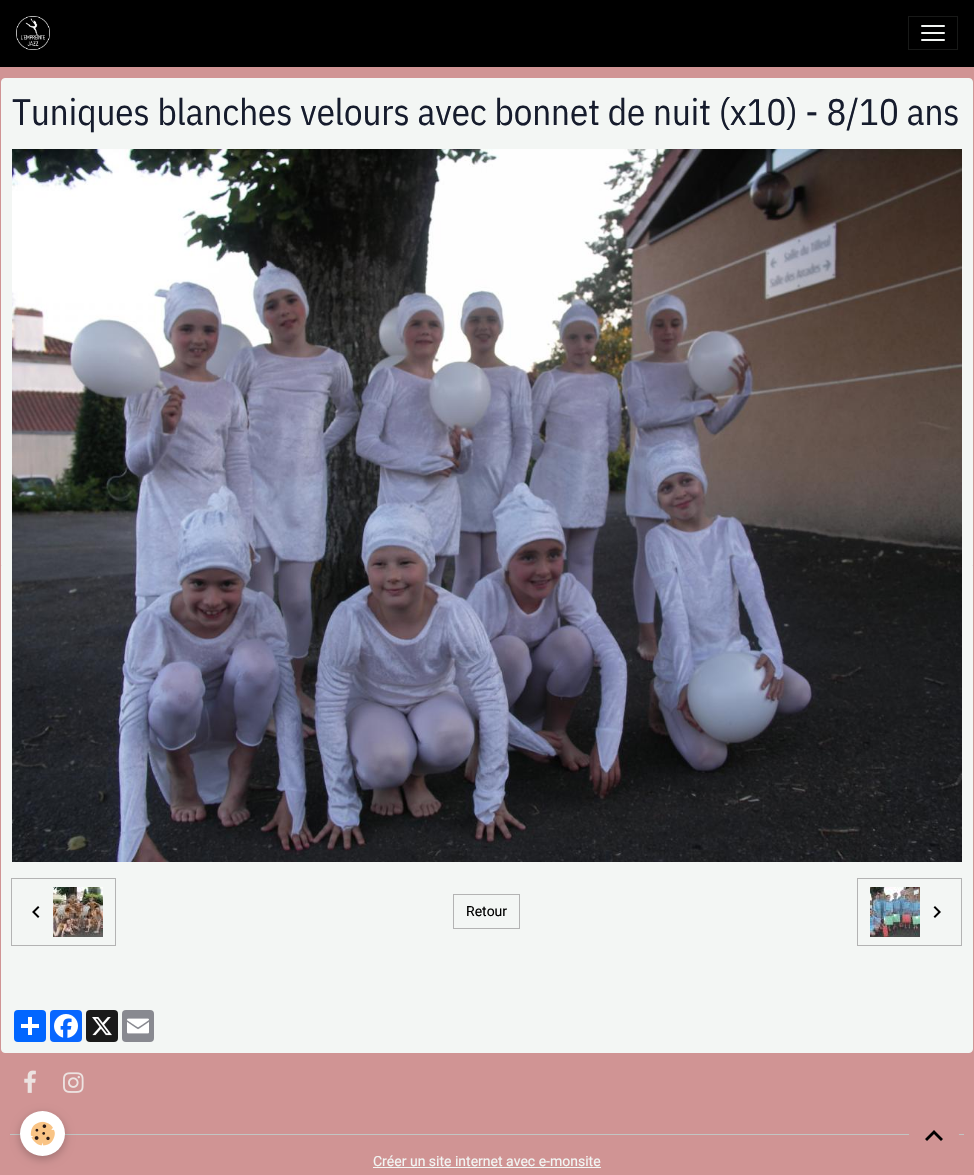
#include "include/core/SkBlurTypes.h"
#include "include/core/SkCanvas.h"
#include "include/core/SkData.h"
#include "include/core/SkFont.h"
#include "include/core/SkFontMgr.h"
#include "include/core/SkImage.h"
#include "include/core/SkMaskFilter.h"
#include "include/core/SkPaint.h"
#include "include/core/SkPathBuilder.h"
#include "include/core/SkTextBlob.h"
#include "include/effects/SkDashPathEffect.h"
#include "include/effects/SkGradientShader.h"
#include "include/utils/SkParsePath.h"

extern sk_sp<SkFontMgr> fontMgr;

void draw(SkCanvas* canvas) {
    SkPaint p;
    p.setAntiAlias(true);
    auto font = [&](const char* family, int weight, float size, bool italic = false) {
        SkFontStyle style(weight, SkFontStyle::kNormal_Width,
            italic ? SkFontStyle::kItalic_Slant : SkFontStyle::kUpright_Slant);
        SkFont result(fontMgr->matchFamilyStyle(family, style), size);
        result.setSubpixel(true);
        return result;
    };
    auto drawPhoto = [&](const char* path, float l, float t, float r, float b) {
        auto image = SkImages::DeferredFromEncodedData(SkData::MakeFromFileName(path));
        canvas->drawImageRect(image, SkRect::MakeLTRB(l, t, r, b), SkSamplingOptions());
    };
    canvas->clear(0xFFD09494);
    p.setColor(0xFF000000);
    canvas->drawRect(SkRect::MakeLTRB(0, 0, 974, 67), p);
    drawPhoto("media/1.png", 16, 16, 50, 50);
    p.setStyle(SkPaint::kStroke_Style);
    p.setStrokeWidth(1);
    p.setColor(0xFF181918);
    canvas->drawRect(SkRect::MakeLTRB(908.5f, 16.5f, 957.5f, 49.5f), p);
    p.setStyle(SkPaint::kFill_Style);
    p.setColor(0xFFF3F6F4);
    canvas->drawRoundRect(SkRect::MakeLTRB(921, 25, 945, 27), 1, 1, p);
    canvas->drawRoundRect(SkRect::MakeLTRB(921, 32, 945, 34), 1, 1, p);
    canvas->drawRoundRect(SkRect::MakeLTRB(921, 39, 945, 41), 1, 1, p);
    canvas->drawRoundRect(SkRect::MakeLTRB(1.5f, 78.5f, 972.5f, 1052.5f), 3.5f, 3.5f, p);
    p.setStyle(SkPaint::kStroke_Style);
    canvas->drawRoundRect(SkRect::MakeLTRB(1.5f, 78.5f, 972.5f, 1052.5f), 3.5f, 3.5f, p);
    auto font1 = font("IBM Plex Sans Condensed", 400, 36.8f);
    p.setStyle(SkPaint::kFill_Style);
    p.setColor(0xFF161C2D);
    canvas->drawString("Tuniques blanches velours avec bonnet de nuit (x10) - 8/10 ans", 12, 125, font1, p);
    drawPhoto("media/2.png", 12, 149, 962, 862);
    p.setStyle(SkPaint::kStroke_Style);
    p.setColor(0xFFB3B3B3);
    canvas->drawRect(SkRect::MakeLTRB(11.5f, 878.5f, 115.5f, 945.5f), p);
    drawPhoto("media/3.png", 32, 906, 40, 918);
    drawPhoto("media/4.png", 53, 887, 103, 937);
    canvas->drawRect(SkRect::MakeLTRB(453.5f, 894.5f, 519.5f, 928.5f), p);
    auto font2 = font("Roboto", 400, 14);
    p.setStyle(SkPaint::kFill_Style);
    p.setColor(0xFF000000);
    canvas->drawString("Retour", 466, 916, font2, p);
    p.setStyle(SkPaint::kStroke_Style);
    p.setColor(0xFFB3B3B3);
    canvas->drawRect(SkRect::MakeLTRB(857.5f, 878.5f, 961.5f, 945.5f), p);
    drawPhoto("media/5.png", 870, 887, 920, 937);
    drawPhoto("media/6.png", 933, 906, 941, 918);
    p.setStyle(SkPaint::kFill_Style);
    p.setColor(0xFF0166FF);
    canvas->drawRoundRect(SkRect::MakeLTRB(14, 1010, 46, 1042), 4, 4, p);
    p.setColor(0xFFFFFFFF);
    canvas->drawRect(SkRect::MakeLTRB(28, 1017, 32, 1035), p);
    canvas->drawRect(SkRect::MakeLTRB(21, 1024, 39, 1028), p);
    p.setColor(0xFF0866FF);
    canvas->drawRoundRect(SkRect::MakeLTRB(50, 1010, 82, 1042), 4, 4, p);
    drawPhoto("media/7.png", 54, 1014, 78, 1038);
    p.setColor(0xFF1A1A1A);
    canvas->drawRoundRect(SkRect::MakeLTRB(86, 1010, 118, 1042), 4, 4, p);
    drawPhoto("media/8.png", 92, 1017, 112, 1036);
    p.setColor(0xFF888990);
    canvas->drawRoundRect(SkRect::MakeLTRB(122, 1010, 154, 1042), 4, 4, p);
    drawPhoto("media/9.png", 127, 1018, 149, 1034);
    p.setColor(0xFFC2C5C3);
    canvas->drawRect(SkRect::MakeLTRB(10, 1134, 964, 1135), p);
    p.setColor(0x3D000000);
    p.setMaskFilter(SkMaskFilter::MakeBlur(kNormal_SkBlurStyle, 5));
    canvas->drawRoundRect(SkRect::MakeLTRB(20, 1114, 65, 1159), 22.5f, 22.5f, p);
    p.setMaskFilter(nullptr);
    p.setColor(0xFFFFFFFF);
    canvas->drawCircle(42.5f, 1133.5f, 22.5f, p);
    drawPhoto("media/10.png", 30, 1121, 55, 1146);
    drawPhoto("media/11.png", 24, 1070, 36, 1093);
    drawPhoto("media/12.png", 63, 1072, 84, 1093);
    p.setColor(0xFFF3F6F4);
    canvas->drawString("Créer un site internet avec e-monsite", 373, 1166, font2, p);
    canvas->drawRect(SkRect::MakeLTRB(373, 1167, 601, 1168), p);
    p.setColor(0xFFD09494);
    canvas->drawCircle(934, 1135, 25, p);
    p.setColor(0xFF000000);
    canvas->drawPath(SkPathBuilder().moveTo(934, 1130).lineTo(943, 1139).lineTo(941, 1141).lineTo(934, 1134).lineTo(927, 1141).lineTo(925, 1139).close().detach(), p);
}
